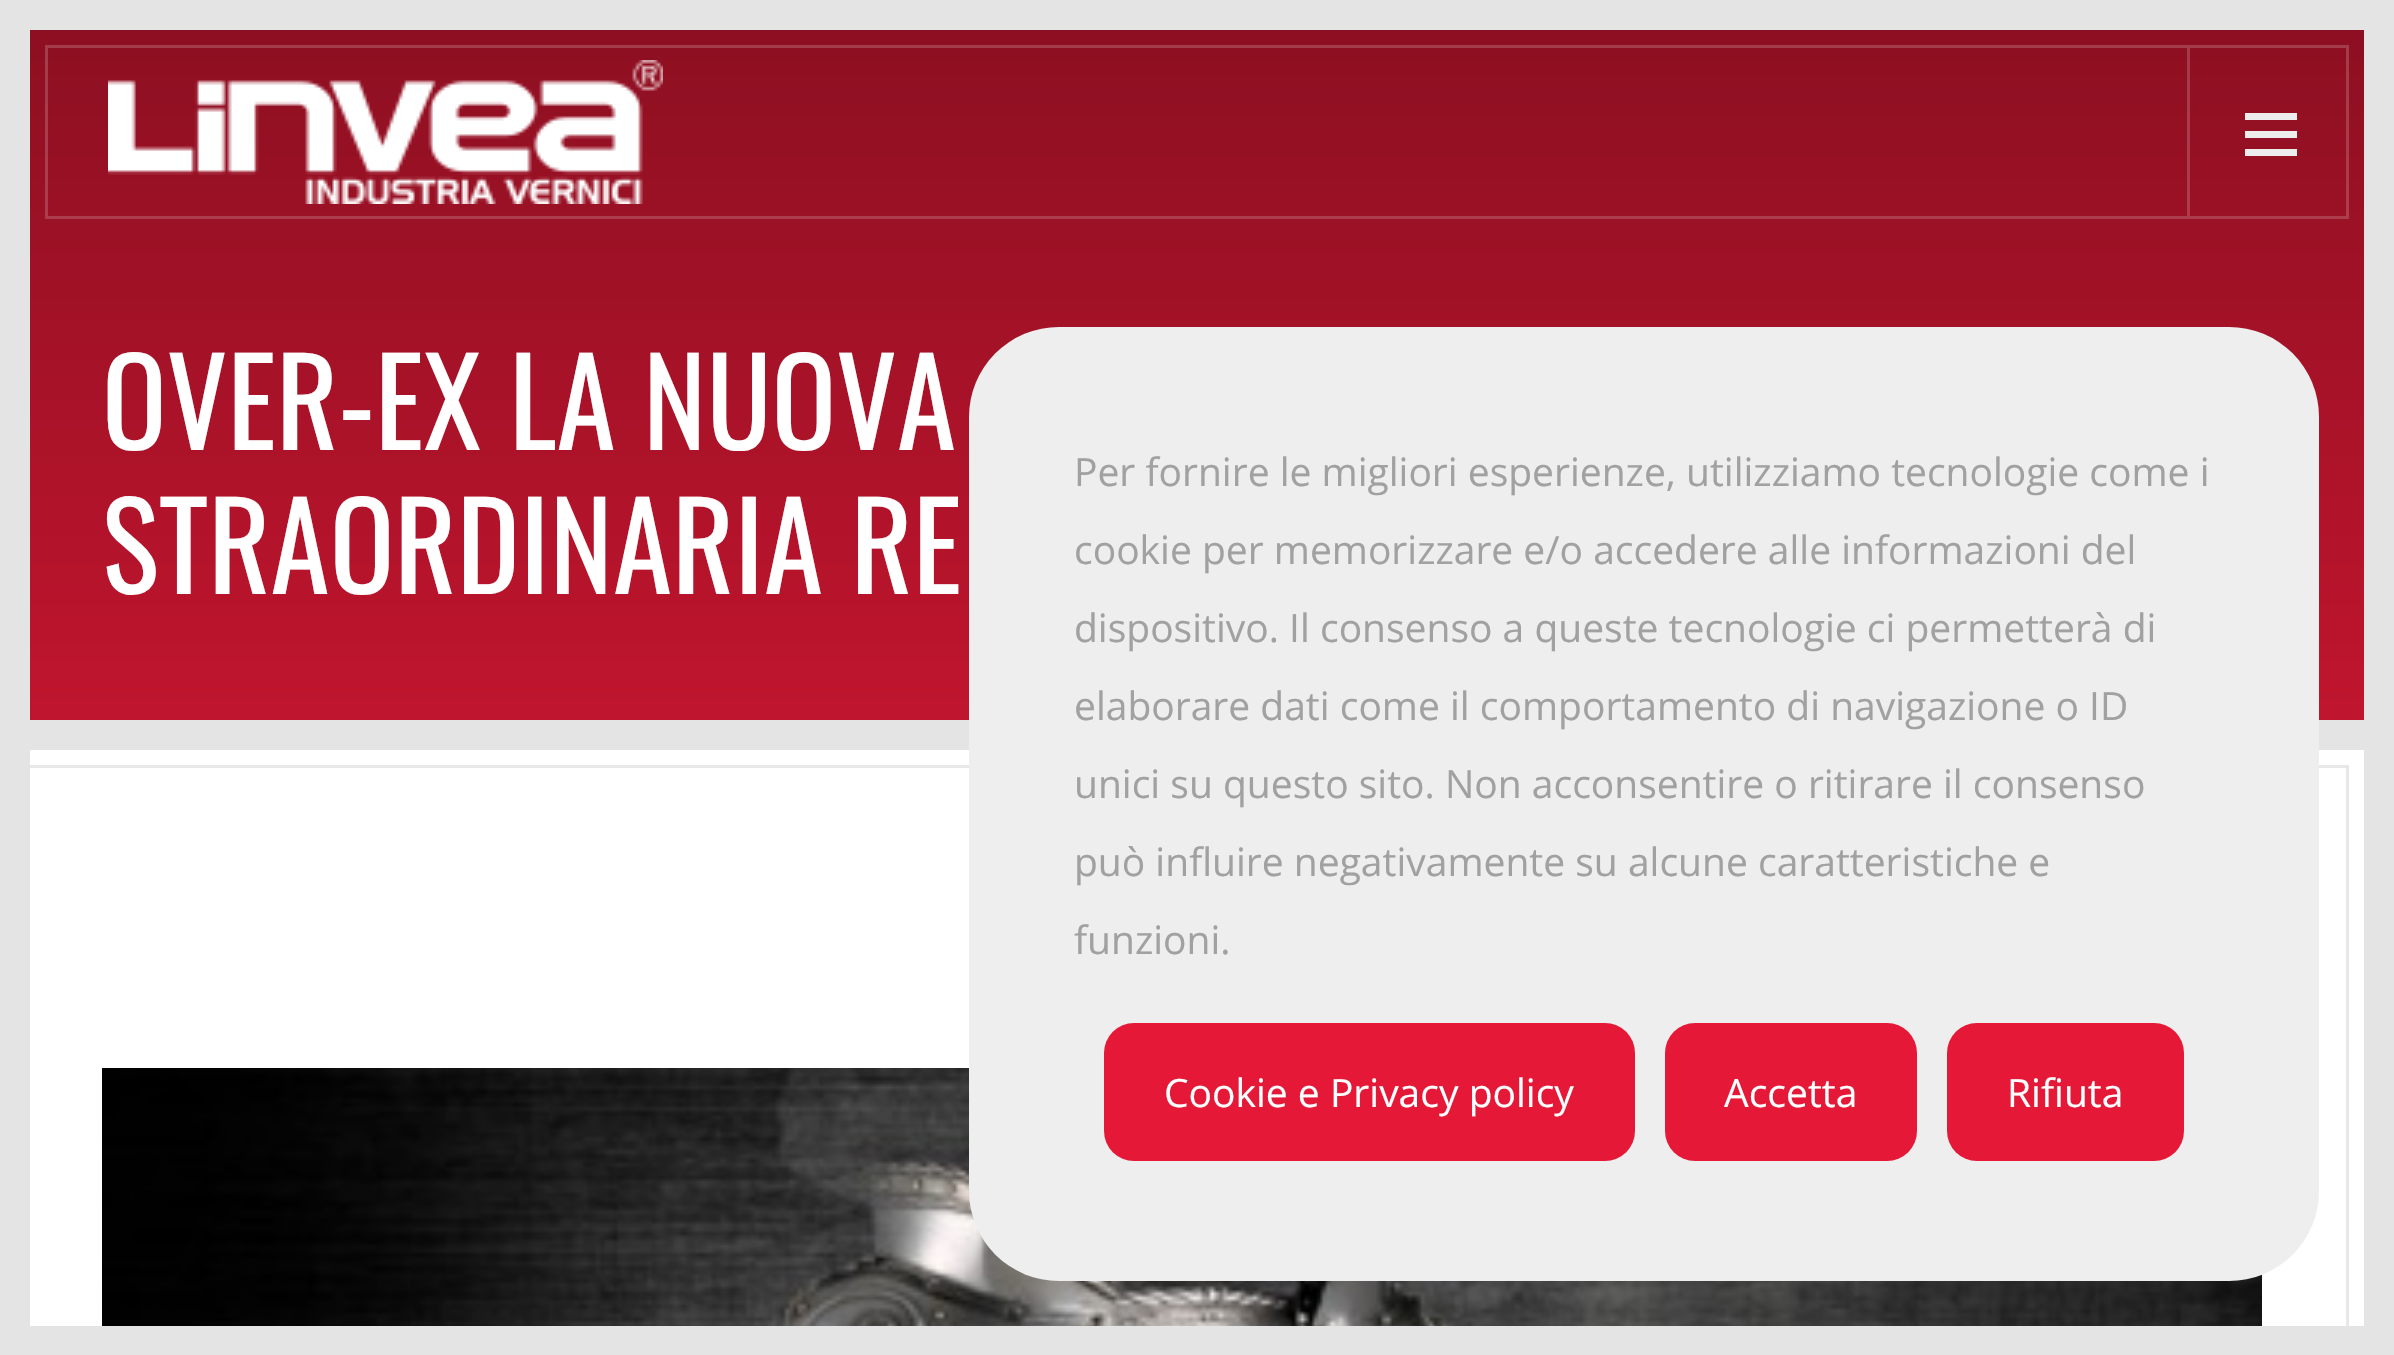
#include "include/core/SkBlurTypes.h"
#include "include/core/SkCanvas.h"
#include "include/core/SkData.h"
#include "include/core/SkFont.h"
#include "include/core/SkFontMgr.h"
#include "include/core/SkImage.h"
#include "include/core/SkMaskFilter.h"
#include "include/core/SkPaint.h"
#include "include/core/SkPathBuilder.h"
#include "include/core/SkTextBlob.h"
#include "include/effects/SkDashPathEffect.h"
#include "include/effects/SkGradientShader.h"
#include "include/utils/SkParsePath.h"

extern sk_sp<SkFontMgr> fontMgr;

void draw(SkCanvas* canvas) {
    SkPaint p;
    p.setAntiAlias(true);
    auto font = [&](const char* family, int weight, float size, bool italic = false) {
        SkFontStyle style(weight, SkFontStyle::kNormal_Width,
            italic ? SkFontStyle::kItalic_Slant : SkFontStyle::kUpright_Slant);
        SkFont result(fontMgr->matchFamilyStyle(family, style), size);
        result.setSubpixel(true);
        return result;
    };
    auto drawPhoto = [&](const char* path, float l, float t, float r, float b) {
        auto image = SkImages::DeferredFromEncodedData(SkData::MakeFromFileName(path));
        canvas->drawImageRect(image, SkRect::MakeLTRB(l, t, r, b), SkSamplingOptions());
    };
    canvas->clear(0xFFFFFFFF);
    p.setColor(0xFFE4E4E4);
    canvas->drawRect(SkRect::MakeLTRB(0, 0, 2394, 30), p);
    p.setStyle(SkPaint::kStroke_Style);
    p.setStrokeWidth(3);
    p.setColor(0xFFE8E8E8);
    canvas->drawRect(SkRect::MakeLTRB(16.5f, 766.5f, 2347.5f, 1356.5f), p);
    p.setStyle(SkPaint::kFill_Style);
    p.setColor(0xFFE4E4E4);
    canvas->drawRect(SkRect::MakeLTRB(0, 30, 30, 1326), p);
    {
        const SkColor colors[] = {0xFF8B0F21, 0xFFC0152E};
        const float stops[] = {0, 1};
        const SkPoint ends[] = {{1197, 0}, {1197, 720}};
        p.setShader(SkGradientShader::MakeLinear(ends, colors, stops, 2, SkTileMode::kClamp));
        p.setAlpha(255);
    }
    canvas->drawRect(SkRect::MakeLTRB(30, 30, 2364, 720), p);
    {
        const SkColor colors[] = {0xFFA03A49, 0xFFCB3F54};
        const float stops[] = {0, 1};
        const SkPoint ends[] = {{1197, 0}, {1197, 720}};
        p.setShader(SkGradientShader::MakeLinear(ends, colors, stops, 2, SkTileMode::kClamp));
        p.setAlpha(255);
    }
    canvas->drawRect(SkRect::MakeLTRB(2187, 48, 2190, 216), p);
    p.setStyle(SkPaint::kStroke_Style);
    p.setShader(nullptr);
    p.setColor(0x2EFFFFFF);
    canvas->drawRect(SkRect::MakeLTRB(46.5f, 46.5f, 2347.5f, 217.5f), p);
    drawPhoto("media/1.png", 108, 60, 663, 204);
    p.setStyle(SkPaint::kFill_Style);
    p.setColor(0xFFEDEDED);
    canvas->drawPath(SkPathBuilder().moveTo(2297, 113).lineTo(2297, 120).lineTo(2245, 120).lineTo(2245, 113).close().moveTo(2245, 138).lineTo(2297, 138).lineTo(2297, 131).lineTo(2245, 131).close().moveTo(2245, 156).lineTo(2297, 156).lineTo(2297, 149).lineTo(2245, 149).close().detach(), p);
    auto font1 = font("Oswald", 400, 120);
    p.setColor(0xFFFFFFFF);
    canvas->drawString("OVER-EX LA NUOVA", 102, 450, font1, p);
    canvas->drawString("STRAORDINARIA RE", 102, 594, font1, p);
    p.setColor(0xFFE4E4E4);
    canvas->drawRect(SkRect::MakeLTRB(30, 720, 2364, 750), p);
    drawPhoto("media/2.png", 102, 1068, 2262, 1326);
    p.setColor(0xFFEEEEEE);
    canvas->drawRoundRect(SkRect::MakeLTRB(969, 327, 2319, 1281), 90, 90, p);
    auto font2 = font("Open Sans", 400, 39);
    p.setColor(0xFFA1A1A1);
    {
        const struct { const char* s; float x, y; } items[] = {
            {"Per fornire le migliori esperienze, utilizziamo tecnologie come i", 1074, 486},
            {"cookie per memorizzare e/o accedere alle informazioni del", 1074, 564},
            {"dispositivo. Il consenso a queste tecnologie ci permetterà di", 1074, 642},
            {"elaborare dati come il comportamento di navigazione o ID", 1074, 720},
            {"unici su questo sito. Non acconsentire o ritirare il consenso", 1074, 798},
            {"può influire negativamente su alcune caratteristiche e", 1074, 876},
            {"funzioni.", 1074, 954},
        };
        for (auto [s, x, y] : items) {
            canvas->drawString(s, x, y, font2, p);
        }
    }
    p.setColor(0xFFE51937);
    canvas->drawRoundRect(SkRect::MakeLTRB(1104, 1023, 1635, 1161), 30, 30, p);
    p.setColor(0xFFFFFFFF);
    canvas->drawString("Cookie e Privacy policy", 1164, 1107, font2, p);
    p.setColor(0xFFE51937);
    canvas->drawRoundRect(SkRect::MakeLTRB(1665, 1023, 1917, 1161), 30, 30, p);
    p.setColor(0xFFFFFFFF);
    canvas->drawString("Accetta", 1724, 1107, font2, p);
    p.setColor(0xFFE51937);
    canvas->drawRoundRect(SkRect::MakeLTRB(1947, 1023, 2184, 1161), 30, 30, p);
    p.setColor(0xFFFFFFFF);
    canvas->drawString("Rifiuta", 2007, 1107, font2, p);
    p.setColor(0xFFE4E4E4);
    canvas->drawRect(SkRect::MakeLTRB(2364, 30, 2394, 1326), p);
    canvas->drawRect(SkRect::MakeLTRB(0, 1326, 2394, 1355), p);
}
